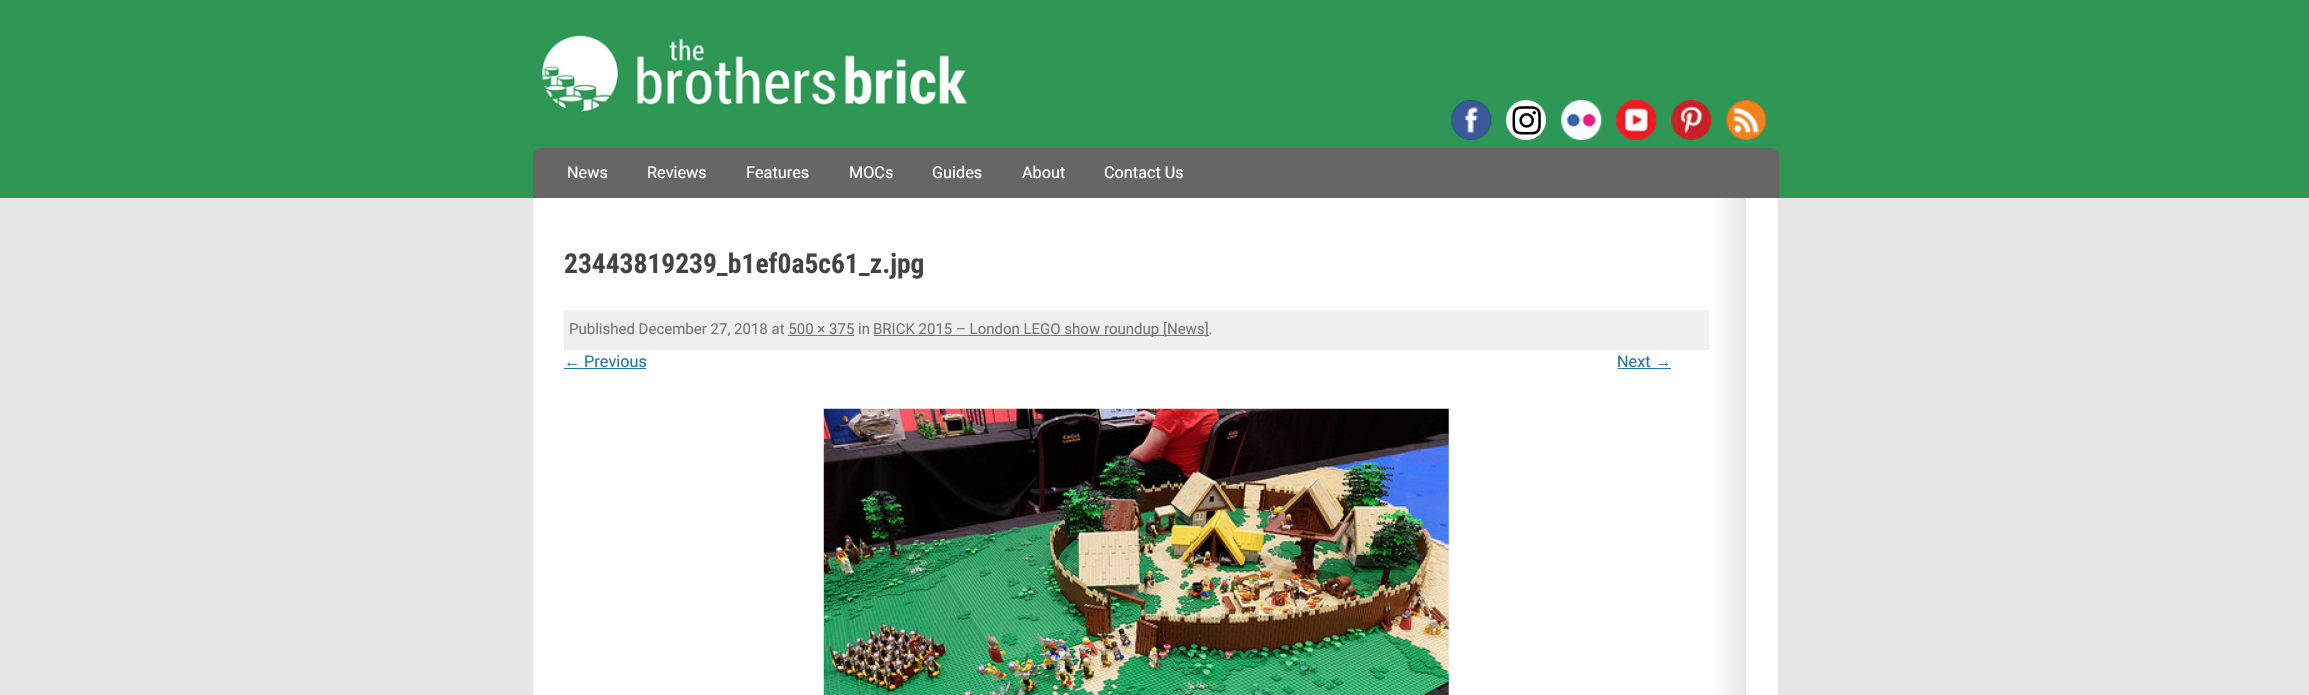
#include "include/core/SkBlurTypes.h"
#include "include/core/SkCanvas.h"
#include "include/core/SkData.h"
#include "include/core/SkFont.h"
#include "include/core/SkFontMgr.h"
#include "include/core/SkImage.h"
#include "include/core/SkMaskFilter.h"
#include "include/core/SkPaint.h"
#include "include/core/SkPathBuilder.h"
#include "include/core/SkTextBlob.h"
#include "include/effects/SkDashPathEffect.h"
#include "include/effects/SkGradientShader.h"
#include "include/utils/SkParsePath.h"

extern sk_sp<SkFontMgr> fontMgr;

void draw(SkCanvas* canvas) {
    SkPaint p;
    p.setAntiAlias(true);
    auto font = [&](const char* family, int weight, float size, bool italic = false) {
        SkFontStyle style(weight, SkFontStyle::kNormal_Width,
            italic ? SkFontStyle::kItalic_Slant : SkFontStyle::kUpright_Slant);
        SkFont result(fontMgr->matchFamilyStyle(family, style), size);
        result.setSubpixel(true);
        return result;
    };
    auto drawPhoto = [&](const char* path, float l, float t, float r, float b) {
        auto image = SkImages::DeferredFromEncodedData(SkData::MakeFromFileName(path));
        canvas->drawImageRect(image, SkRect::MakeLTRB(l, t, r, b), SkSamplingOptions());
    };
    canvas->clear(0xFFE6E6E6);
    p.setColor(0xFF2E9755);
    canvas->drawRect(SkRect::MakeLTRB(0, 0, 2309, 198), p);
    drawPhoto("media/1.png", 541, 34, 967, 113);
    drawPhoto("media/2.png", 1451, 100, 1492, 140);
    p.setColor(0xFFFFFFFF);
    canvas->drawCircle(1526, 120, 20, p);
    drawPhoto("media/3.png", 1512, 106, 1541, 135);
    drawPhoto("media/4.png", 1561, 100, 1602, 140);
    drawPhoto("media/5.png", 1616, 100, 1657, 140);
    drawPhoto("media/6.png", 1671, 100, 1712, 140);
    drawPhoto("media/7.png", 1726, 100, 1767, 140);
    p.setColor(0xFF666666);
    canvas->drawPath(SkPathBuilder().moveTo(541, 148).lineTo(1771, 148).cubicTo(1775.5f, 148, 1779, 151.5f, 1779, 156).lineTo(1779, 198).lineTo(533, 198).lineTo(533, 156).cubicTo(533, 151.5f, 536.5f, 148, 541, 148).close().detach(), p);
    auto font1 = font("Roboto", 400, 16.25f);
    p.setColor(0xFFFFFFFF);
    {
        const struct { const char* s; float x, y; } items[] = {
            {"News", 567, 178},
            {"Reviews", 647, 178},
            {"Features", 746, 178},
            {"MOCs", 849, 178},
            {"Guides", 932, 178},
            {"About", 1022, 178},
            {"Contact Us", 1104, 178},
        };
        for (auto [s, x, y] : items) {
            canvas->drawString(s, x, y, font1, p);
        }
    }
    canvas->drawRect(SkRect::MakeLTRB(533, 198, 1778, 695), p);
    {
        const SkColor colors[] = {0xFFFFFFFF, 0xFFE5E5E5};
        const float stops[] = {0.97f, 1};
        const SkPoint ends[] = {{564, 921}, {1746, 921}};
        p.setShader(SkGradientShader::MakeLinear(ends, colors, stops, 2, SkTileMode::kClamp));
        p.setAlpha(255);
    }
    canvas->drawRect(SkRect::MakeLTRB(1714, 198, 1746, 695), p);
    auto font2 = font("Roboto Condensed", 700, 27.5f);
    p.setShader(nullptr);
    p.setColor(0xFF444444);
    canvas->drawString("23443819239_b1ef0a5c61_z.jpg", 564, 273, font2, p);
    p.setColor(0xFFEFEFEF);
    canvas->drawRect(SkRect::MakeLTRB(564, 310, 1709, 350), p);
    auto font3 = font("Roboto", 400, 15);
    p.setColor(0xFF757575);
    canvas->drawString("Published December 27, 2018 at 500 × 375 in", 569, 334, font3, p);
    canvas->drawRect(SkRect::MakeLTRB(874, 335, 1209, 336), p);
    canvas->drawString("BRICK 2015 – London LEGO show roundup [News].", 873, 334, font3, p);
    canvas->drawRect(SkRect::MakeLTRB(788, 335, 854, 336), p);
    auto font4 = font("Liberation Sans", 400, 16.25f);
    p.setColor(0xFF21769B);
    canvas->drawString("←", 564, 367, font4, p);
    canvas->drawRect(SkRect::MakeLTRB(564, 368, 646, 369), p);
    canvas->drawString("Previous", 584, 367, font1, p);
    canvas->drawString("Next", 1617, 367, font1, p);
    canvas->drawString("→", 1655, 367, font4, p);
    canvas->drawRect(SkRect::MakeLTRB(1618, 368, 1671, 369), p);
    drawPhoto("media/8.png", 823, 408, 1449, 695);
}
